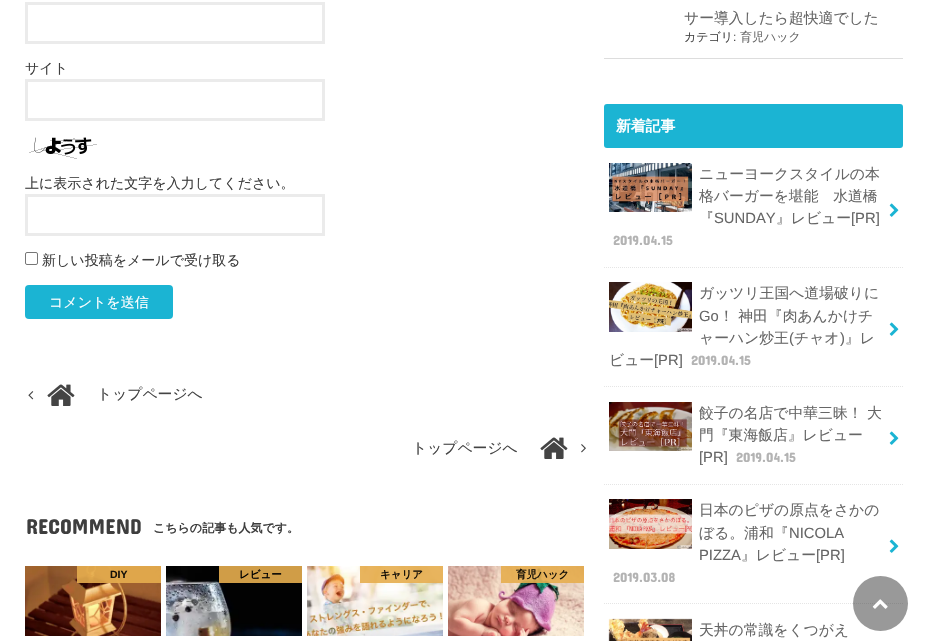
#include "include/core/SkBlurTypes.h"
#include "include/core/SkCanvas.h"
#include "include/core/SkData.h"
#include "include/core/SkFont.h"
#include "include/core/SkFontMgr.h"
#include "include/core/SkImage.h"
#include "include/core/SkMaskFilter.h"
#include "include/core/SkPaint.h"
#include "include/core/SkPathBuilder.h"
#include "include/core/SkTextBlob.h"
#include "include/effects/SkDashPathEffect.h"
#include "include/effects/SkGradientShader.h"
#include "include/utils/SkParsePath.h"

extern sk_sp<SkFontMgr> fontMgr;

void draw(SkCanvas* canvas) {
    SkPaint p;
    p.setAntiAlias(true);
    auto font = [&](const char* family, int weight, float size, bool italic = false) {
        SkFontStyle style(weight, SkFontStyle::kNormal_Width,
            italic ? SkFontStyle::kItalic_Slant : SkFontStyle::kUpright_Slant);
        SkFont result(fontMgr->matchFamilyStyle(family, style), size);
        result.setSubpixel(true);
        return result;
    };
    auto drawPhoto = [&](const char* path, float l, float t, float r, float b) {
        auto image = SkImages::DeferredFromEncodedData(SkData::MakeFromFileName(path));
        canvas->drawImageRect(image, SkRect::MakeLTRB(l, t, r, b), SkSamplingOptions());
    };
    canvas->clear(0xFFFFFFFF);
    p.setStyle(SkPaint::kStroke_Style);
    p.setStrokeWidth(3);
    p.setColor(0xFFEBEBEB);
    canvas->drawPath(SkPathBuilder().moveTo(26.5f, 3.5f).lineTo(323.5f, 3.5f).lineTo(323.5f, 42.5f).lineTo(26.5f, 42.5f).close().detach(), p);
    auto font1 = font("WenQuanYi Zen Hei", 500, 14);
    p.setStyle(SkPaint::kFill_Style);
    p.setColor(0xFF3E3E3E);
    canvas->drawString("サイト", 25, 73, font1, p);
    p.setStyle(SkPaint::kStroke_Style);
    p.setColor(0xFFEBEBEB);
    canvas->drawPath(SkPathBuilder().moveTo(26.5f, 80.5f).lineTo(323.5f, 80.5f).lineTo(323.5f, 119.5f).lineTo(26.5f, 119.5f).close().detach(), p);
    drawPhoto("media/1.png", 29, 137, 97, 159);
    p.setStyle(SkPaint::kFill_Style);
    p.setColor(0xFF3E3E3E);
    canvas->drawString("上に表示された文字を入力してください。", 25, 188, font1, p);
    p.setStyle(SkPaint::kStroke_Style);
    p.setColor(0xFFEBEBEB);
    canvas->drawPath(SkPathBuilder().moveTo(26.5f, 195.5f).lineTo(323.5f, 195.5f).lineTo(323.5f, 234.5f).lineTo(26.5f, 234.5f).close().detach(), p);
    p.setStrokeWidth(1);
    p.setColor(0xFF767676);
    canvas->drawRoundRect(SkRect::MakeLTRB(25.5f, 252.5f, 37.5f, 264.5f), 1.5f, 1.5f, p);
    p.setStyle(SkPaint::kFill_Style);
    p.setColor(0xFF3E3E3E);
    canvas->drawString("新しい投稿をメールで受け取る", 42, 265, font1, p);
    p.setColor(0xFF1BB4D3);
    canvas->drawRoundRect(SkRect::MakeLTRB(25, 285, 173, 319), 4, 4, p);
    p.setColor(0xFFFFFFFF);
    canvas->drawString("コメントを送信", 49, 307, font1, p);
    drawPhoto("media/2.png", 28, 391, 34, 400);
    drawPhoto("media/3.png", 47, 384, 75, 406);
    auto font2 = font("WenQuanYi Zen Hei", 500, 14.8f);
    p.setColor(0xFF444444);
    canvas->drawString("トップページへ", 97, 399, font2, p);
    canvas->drawString("トップページへ", 412, 453, font2, p);
    drawPhoto("media/3.png", 540, 437, 568, 459);
    drawPhoto("media/4.png", 581, 444, 586, 453);
    auto font3 = font("Concert One", 400, 21.5f);
    p.setColor(0xFF3E3E3E);
    canvas->drawString("RECOMMEND", 26, 534, font3, p);
    auto font4 = font("WenQuanYi Zen Hei", 700, 12);
    canvas->drawString("こちらの記事も人気です。", 153, 532, font4, p);
    drawPhoto("media/5.png", 25, 566, 161, 636);
    p.setColor(0xE6E5AD4E);
    canvas->drawRect(SkRect::MakeLTRB(77, 566, 161, 583), p);
    auto font5 = font("Liberation Sans", 700, 10.5f);
    p.setColor(0xFF161108);
    canvas->drawString("DIY", 110, 578, font5, p);
    drawPhoto("media/6.png", 166, 566, 302, 636);
    p.setColor(0xE6E5AD4E);
    canvas->drawRect(SkRect::MakeLTRB(219, 566, 302, 583), p);
    auto font6 = font("WenQuanYi Zen Hei", 700, 10.5f);
    p.setColor(0xFF000000);
    canvas->drawString("レビュー", 239, 578, font6, p);
    drawPhoto("media/7.png", 307, 566, 443, 636);
    p.setColor(0xE6E5AD4E);
    canvas->drawRect(SkRect::MakeLTRB(360, 566, 443, 583), p);
    p.setColor(0xFF161108);
    canvas->drawString("キャリア", 380, 578, font6, p);
    drawPhoto("media/8.png", 448, 566, 584, 636);
    p.setColor(0xE6E5AD4E);
    canvas->drawRect(SkRect::MakeLTRB(501, 566, 584, 583), p);
    p.setColor(0xFF161108);
    canvas->drawString("育児ハック", 516, 578, font6, p);
    p.setColor(0xFFDDDDDD);
    canvas->drawRect(SkRect::MakeLTRB(604, 58, 903, 59), p);
    p.setColor(0xFF666666);
    canvas->drawString("サー導入したら超快適でした", 684, 23, font2, p);
    auto font7 = font("WenQuanYi Zen Hei", 500, 12);
    p.setColor(0xFF444444);
    canvas->drawString("カテゴリ", 684, 41, font7, p);
    auto font8 = font("Liberation Sans", 400, 12);
    canvas->drawString(":", 733, 41, font8, p);
    p.setColor(0xFF666666);
    canvas->drawString("育児ハック", 740, 41, font7, p);
    p.setColor(0xFF1BB4D3);
    canvas->drawRoundRect(SkRect::MakeLTRB(604, 104, 903, 148), 3, 3, p);
    auto font9 = font("WenQuanYi Zen Hei", 700, 14.8f);
    p.setColor(0xFFFFFFFF);
    canvas->drawString("新着記事", 616, 131, font9, p);
    p.setStyle(SkPaint::kStroke_Style);
    p.setColor(0xFFE5E5E5);
    p.setPathEffect(SkDashPathEffect::Make({{1, 1}}, 0));
    canvas->drawPath(SkPathBuilder().moveTo(604, 267.5f).lineTo(903, 267.5f).detach(), p);
    p.setPathEffect(nullptr);
    drawPhoto("media/9.png", 609, 163, 692, 212);
    p.setStyle(SkPaint::kFill_Style);
    p.setColor(0xFF666666);
    {
        const struct { const char* s; float x, y; } items[] = {
            {"ニューヨークスタイルの本", 699, 179},
            {"格バーガーを堪能　水道橋", 699, 201},
            {"『", 699, 223},
        };
        for (auto [s, x, y] : items) {
            canvas->drawString(s, x, y, font2, p);
        }
    }
    auto font10 = font("Liberation Sans", 400, 14.8f);
    canvas->drawString("SUNDAY", 714, 223, font10, p);
    canvas->drawString("』レビュー", 776, 223, font2, p);
    canvas->drawString("[PR]", 851, 223, font10, p);
    drawPhoto("media/10.png", 889, 203, 899, 217);
    auto font11 = font("Concert One", 400, 13.5f);
    p.setColor(0xFFB3B3B3);
    canvas->drawString("2019.04.15", 613, 245, font11, p);
    p.setStyle(SkPaint::kStroke_Style);
    p.setColor(0xFFE5E5E5);
    p.setPathEffect(SkDashPathEffect::Make({{1, 1}}, 0));
    canvas->drawPath(SkPathBuilder().moveTo(604, 386.5f).lineTo(903, 386.5f).detach(), p);
    p.setPathEffect(nullptr);
    drawPhoto("media/11.png", 609, 282, 692, 332);
    p.setStyle(SkPaint::kFill_Style);
    p.setColor(0xFF666666);
    canvas->drawString("ガッツリ王国へ道場破りに", 699, 298, font2, p);
    canvas->drawString("Go", 699, 321, font10, p);
    canvas->drawString("！ 神田『肉あんかけチ", 719, 321, font2, p);
    canvas->drawString("ャーハン炒王", 699, 343, font2, p);
    canvas->drawString("(", 789, 343, font10, p);
    canvas->drawString("チャオ", 794, 343, font2, p);
    canvas->drawString(")", 840, 343, font10, p);
    canvas->drawString("』レ", 845, 343, font2, p);
    drawPhoto("media/10.png", 889, 322, 899, 336);
    canvas->drawString("ビュー", 609, 365, font2, p);
    canvas->drawString("[PR]", 654, 365, font10, p);
    p.setColor(0xFFB3B3B3);
    canvas->drawString("2019.04.15", 691, 365, font11, p);
    p.setStyle(SkPaint::kStroke_Style);
    p.setColor(0xFFE5E5E5);
    p.setPathEffect(SkDashPathEffect::Make({{1, 1}}, 0));
    canvas->drawPath(SkPathBuilder().moveTo(604, 484.5f).lineTo(903, 484.5f).detach(), p);
    p.setPathEffect(nullptr);
    drawPhoto("media/12.png", 609, 402, 692, 451);
    p.setStyle(SkPaint::kFill_Style);
    p.setColor(0xFF666666);
    canvas->drawString("餃子の名店で中華三昧！ 大", 699, 418, font2, p);
    canvas->drawString("門『東海飯店』レビュー", 699, 440, font2, p);
    drawPhoto("media/10.png", 889, 431, 899, 445);
    canvas->drawString("[PR]", 699, 462, font10, p);
    p.setColor(0xFFB3B3B3);
    canvas->drawString("2019.04.15", 736, 462, font11, p);
    p.setStyle(SkPaint::kStroke_Style);
    p.setColor(0xFFE5E5E5);
    p.setPathEffect(SkDashPathEffect::Make({{1, 1}}, 0));
    canvas->drawPath(SkPathBuilder().moveTo(604, 603.5f).lineTo(903, 603.5f).detach(), p);
    p.setPathEffect(nullptr);
    drawPhoto("media/13.png", 609, 499, 692, 549);
    p.setStyle(SkPaint::kFill_Style);
    p.setColor(0xFF666666);
    canvas->drawString("日本のピザの原点をさかの", 699, 515, font2, p);
    canvas->drawString("ぼる。浦和『", 699, 538, font2, p);
    canvas->drawString("NICOLA", 789, 538, font10, p);
    drawPhoto("media/10.png", 889, 539, 899, 553);
    canvas->drawString("PIZZA", 699, 560, font10, p);
    canvas->drawString("』レビュー", 741, 560, font2, p);
    canvas->drawString("[PR]", 816, 560, font10, p);
    p.setColor(0xFFB3B3B3);
    canvas->drawString("2019.03.08", 613, 582, font11, p);
    drawPhoto("media/14.png", 608, 618, 692, 641);
    p.setColor(0xFF666666);
    canvas->drawString("天丼の常識をくつがえ", 699, 635, font2, p);
    p.setColor(0x80333333);
    canvas->drawCircle(880.5f, 603.5f, 27.5f, p);
    drawPhoto("media/15.png", 872, 599, 888, 609);
}
